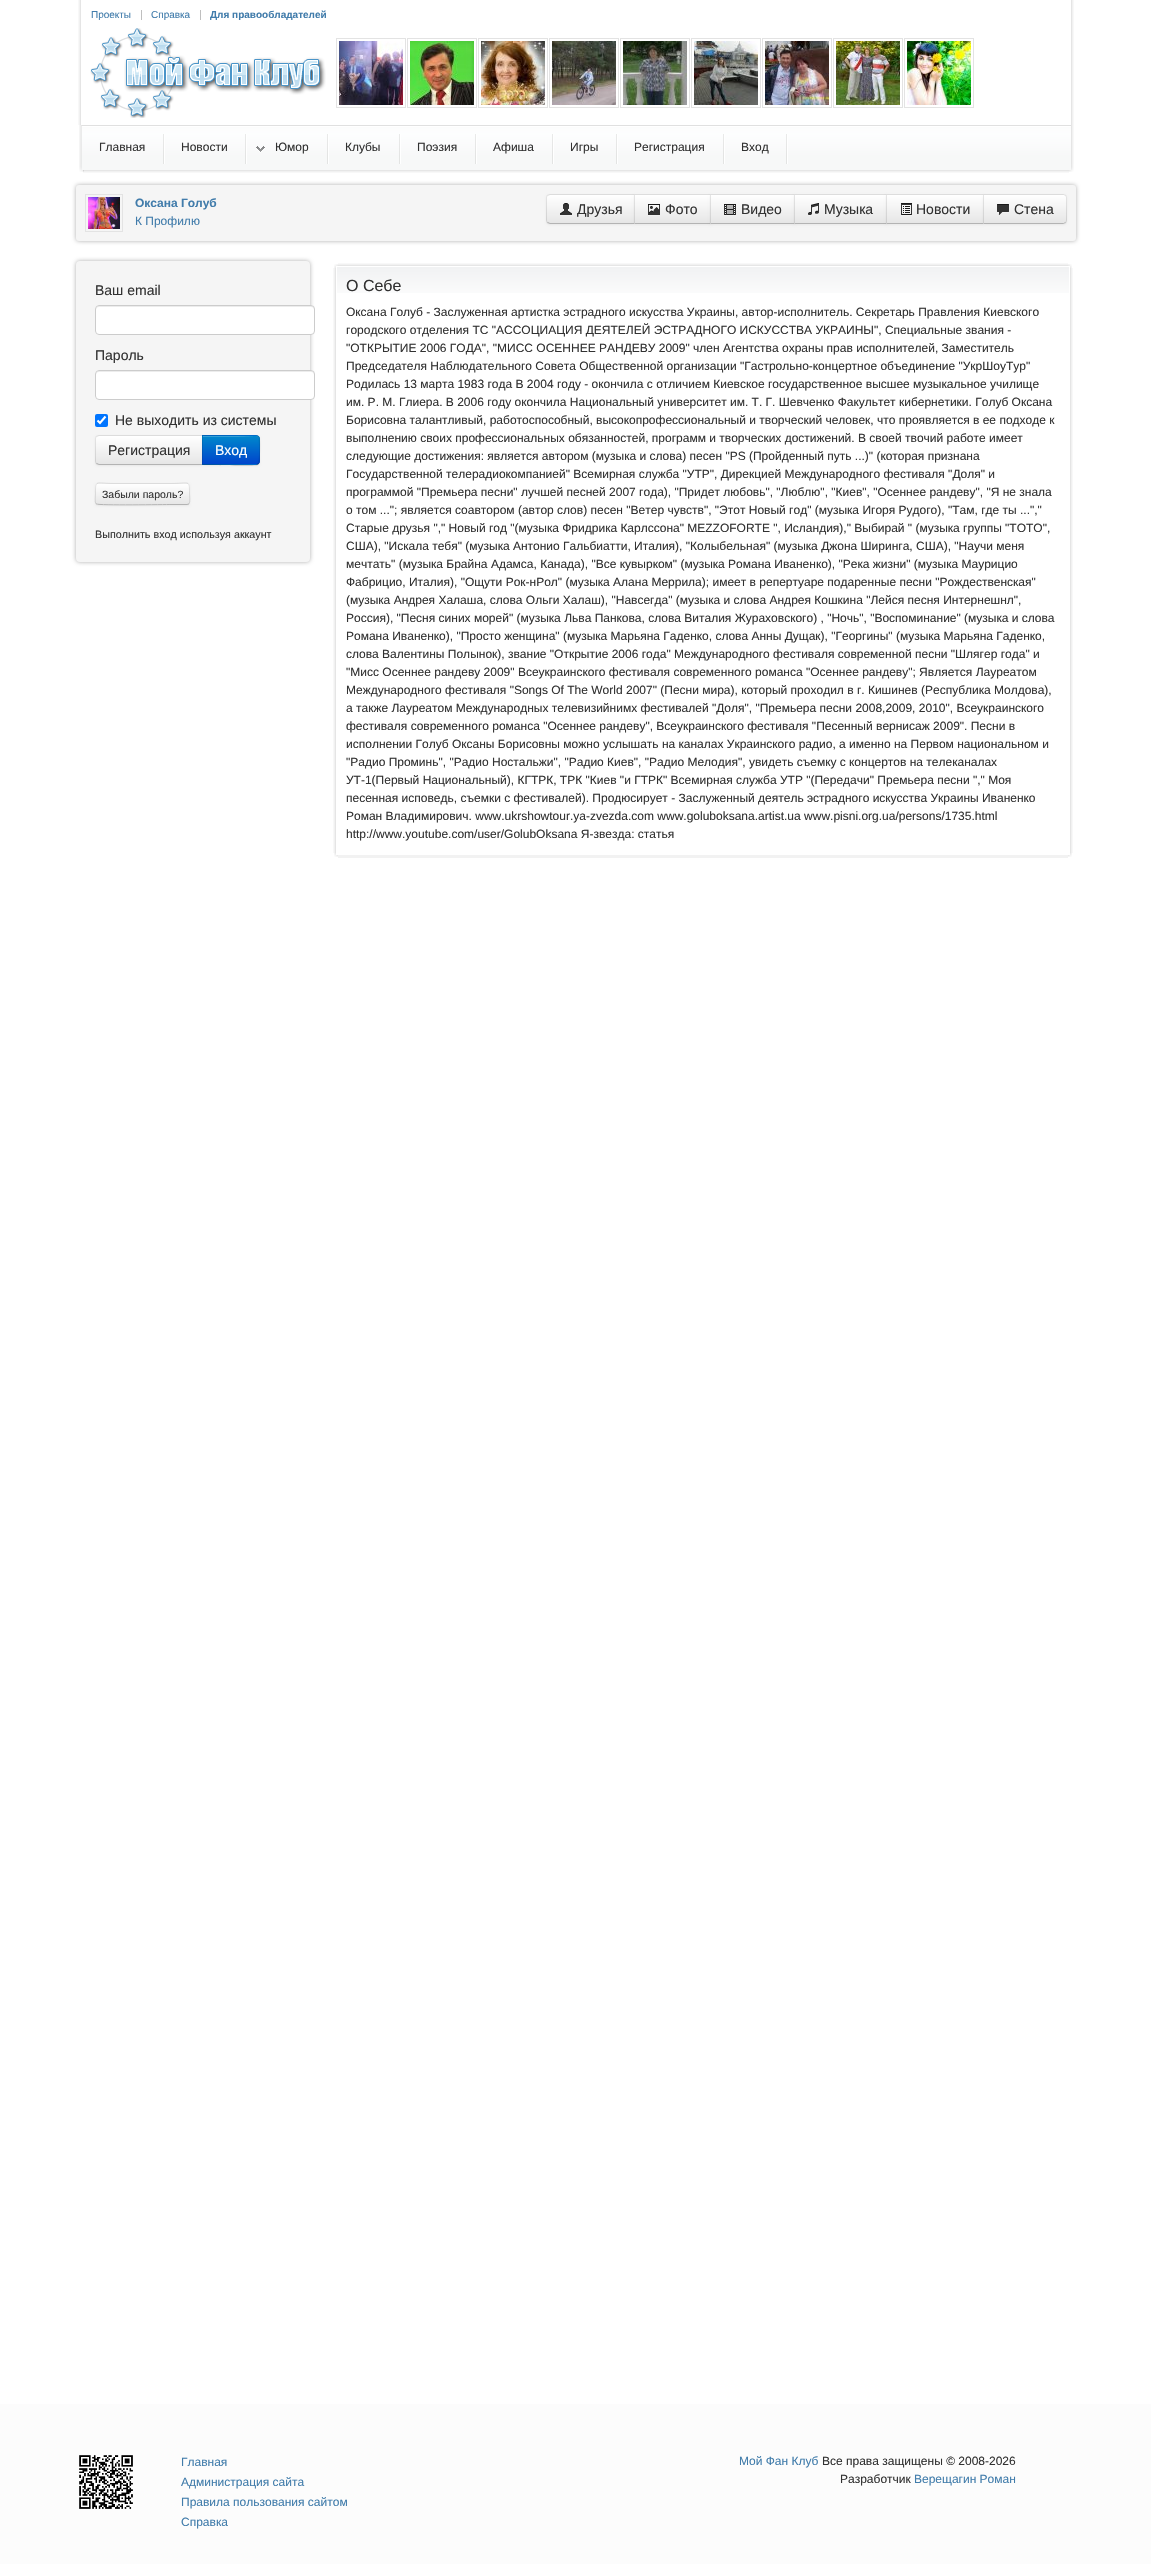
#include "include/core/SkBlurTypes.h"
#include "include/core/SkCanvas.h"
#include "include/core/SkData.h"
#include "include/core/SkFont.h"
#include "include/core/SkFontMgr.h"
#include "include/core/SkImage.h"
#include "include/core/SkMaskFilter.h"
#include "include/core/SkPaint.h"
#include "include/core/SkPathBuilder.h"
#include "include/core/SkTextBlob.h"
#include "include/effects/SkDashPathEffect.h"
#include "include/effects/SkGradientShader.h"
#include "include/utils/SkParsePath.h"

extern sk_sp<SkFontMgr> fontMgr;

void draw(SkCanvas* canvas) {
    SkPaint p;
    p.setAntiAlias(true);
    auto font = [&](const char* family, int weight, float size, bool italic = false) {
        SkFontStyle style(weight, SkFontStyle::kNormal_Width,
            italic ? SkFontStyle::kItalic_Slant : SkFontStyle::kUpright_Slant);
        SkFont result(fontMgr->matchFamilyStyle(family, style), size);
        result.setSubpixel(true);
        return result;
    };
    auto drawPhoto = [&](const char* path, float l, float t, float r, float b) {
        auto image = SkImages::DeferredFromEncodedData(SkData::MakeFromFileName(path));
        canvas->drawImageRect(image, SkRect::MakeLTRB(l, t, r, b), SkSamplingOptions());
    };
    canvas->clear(0xFFFFFFFF);
    drawPhoto("media/1.png", 78, 0, 81, 125);
    drawPhoto("media/2.png", 1071, 0, 1074, 125);
    auto font1 = font("Liberation Sans", 400, 10);
    p.setColor(0xFF417CAB);
    canvas->drawString("Проекты", 91, 18, font1, p);
    p.setColor(0xFFBFBFBF);
    canvas->drawRect(SkRect::MakeLTRB(141, 10, 142, 20), p);
    p.setColor(0xFF417CAB);
    canvas->drawString("Справка", 151, 18, font1, p);
    p.setColor(0xFFBFBFBF);
    canvas->drawRect(SkRect::MakeLTRB(200, 10, 201, 20), p);
    auto font2 = font("Liberation Sans", 700, 10);
    p.setColor(0xFF417CAB);
    canvas->drawString("Для правообладателей", 210, 18, font2, p);
    drawPhoto("media/3.png", 90, 28, 326, 118);
    p.setStyle(SkPaint::kStroke_Style);
    p.setStrokeWidth(1);
    p.setColor(0xFFE3E3E3);
    canvas->drawRect(SkRect::MakeLTRB(336.5f, 38.5f, 405.5f, 107.5f), p);
    drawPhoto("media/4.png", 339, 41, 403, 105);
    canvas->drawRect(SkRect::MakeLTRB(407.5f, 38.5f, 476.5f, 107.5f), p);
    drawPhoto("media/5.png", 410, 41, 474, 105);
    canvas->drawRect(SkRect::MakeLTRB(478.5f, 38.5f, 547.5f, 107.5f), p);
    drawPhoto("media/6.png", 481, 41, 545, 105);
    canvas->drawRect(SkRect::MakeLTRB(549.5f, 38.5f, 618.5f, 107.5f), p);
    drawPhoto("media/7.png", 552, 41, 616, 105);
    canvas->drawRect(SkRect::MakeLTRB(620.5f, 38.5f, 689.5f, 107.5f), p);
    drawPhoto("media/8.png", 623, 41, 687, 105);
    canvas->drawRect(SkRect::MakeLTRB(691.5f, 38.5f, 760.5f, 107.5f), p);
    drawPhoto("media/9.png", 694, 41, 758, 105);
    canvas->drawRect(SkRect::MakeLTRB(762.5f, 38.5f, 831.5f, 107.5f), p);
    drawPhoto("media/10.png", 765, 41, 829, 105);
    canvas->drawRect(SkRect::MakeLTRB(833.5f, 38.5f, 902.5f, 107.5f), p);
    drawPhoto("media/11.png", 836, 41, 900, 105);
    canvas->drawRect(SkRect::MakeLTRB(904.5f, 38.5f, 973.5f, 107.5f), p);
    drawPhoto("media/12.png", 907, 41, 971, 105);
    drawPhoto("media/13.png", 79, 125, 84, 172);
    drawPhoto("media/14.png", 1069, 125, 1074, 172);
    drawPhoto("media/15.png", 83, 125, 1069, 173);
    drawPhoto("media/16.png", 163, 134, 165, 164);
    auto font3 = font("Liberation Sans", 400, 12);
    p.setStyle(SkPaint::kFill_Style);
    p.setColor(0xFF323232);
    canvas->drawString("Главная", 99, 151, font3, p);
    drawPhoto("media/16.png", 245, 134, 247, 164);
    canvas->drawString("Новости", 181, 151, font3, p);
    drawPhoto("media/16.png", 327, 134, 329, 164);
    drawPhoto("media/17.png", 256, 146, 265, 153);
    canvas->drawString("Юмор", 275, 151, font3, p);
    drawPhoto("media/16.png", 399, 134, 401, 164);
    canvas->drawString("Клубы", 345, 151, font3, p);
    drawPhoto("media/16.png", 475, 134, 477, 164);
    canvas->drawString("Поэзия", 417, 151, font3, p);
    drawPhoto("media/16.png", 552, 134, 554, 164);
    canvas->drawString("Афиша", 493, 151, font3, p);
    drawPhoto("media/16.png", 616, 134, 618, 164);
    canvas->drawString("Игры", 570, 151, font3, p);
    drawPhoto("media/16.png", 723, 134, 725, 164);
    canvas->drawString("Регистрация", 634, 151, font3, p);
    drawPhoto("media/16.png", 786, 134, 788, 164);
    canvas->drawString("Вход", 741, 151, font3, p);
    p.setColor(0xFFAEAEAE);
    p.setMaskFilter(SkMaskFilter::MakeBlur(kNormal_SkBlurStyle, 2));
    canvas->drawRoundRect(SkRect::MakeLTRB(76, 185, 1076, 241), 3, 3, p);
    p.setMaskFilter(nullptr);
    p.setColor(0xFFF5F5F5);
    canvas->drawRoundRect(SkRect::MakeLTRB(76, 185, 1076, 241), 3, 3, p);
    p.setStyle(SkPaint::kStroke_Style);
    p.setColor(0xFFE3E3E3);
    canvas->drawRect(SkRect::MakeLTRB(85.5f, 194.5f, 122.5f, 231.5f), p);
    drawPhoto("media/18.png", 88, 197, 120, 229);
    auto font4 = font("Liberation Sans", 700, 12);
    p.setStyle(SkPaint::kFill_Style);
    p.setColor(0xFF417CAB);
    canvas->drawString("Оксана Голуб", 135, 207, font4, p);
    canvas->drawString("К Профилю", 135, 225, font3, p);
    p.setColor(0x0D000000);
    p.setMaskFilter(SkMaskFilter::MakeBlur(kNormal_SkBlurStyle, 1));
    canvas->drawRoundRect(SkRect::MakeLTRB(546, 195, 635, 225), 4, 4, p);
    p.setMaskFilter(nullptr);
    p.setColor(0xFFF5F5F5);
    canvas->drawPath(SkPathBuilder().moveTo(550, 194).lineTo(635, 194).lineTo(635, 224).lineTo(550, 224).cubicTo(548, 224, 546, 222, 546, 220).lineTo(546, 198).cubicTo(546, 196, 548, 194, 550, 194).close().detach(), p);
    canvas->save();
    canvas->clipPath(SkPathBuilder().moveTo(550, 194).lineTo(635, 194).lineTo(635, 224).lineTo(550, 224).cubicTo(548, 224, 546, 222, 546, 220).lineTo(546, 198).cubicTo(546, 196, 548, 194, 550, 194).close().detach(), true);
    {
        const SkColor colors[] = {0xFFFFFFFF, 0xFFE6E6E6};
        const float stops[] = {0, 1};
        const SkPoint ends[] = {{591, 195}, {591, 223}};
        p.setShader(SkGradientShader::MakeLinear(ends, colors, stops, 2, SkTileMode::kClamp));
        p.setAlpha(255);
    }
    canvas->drawRect(SkRect::MakeLTRB(546, 195, 634, 223), p);
    canvas->restore();
    p.setShader(nullptr);
    p.setColor(0x1A000000);
    canvas->drawPath(SkPathBuilder().moveTo(550, 194).lineTo(547, 195).lineTo(548, 196).lineTo(550, 195).lineTo(634, 195).lineTo(635, 194).close().detach(), p);
    p.setColor(0xFFB3B3B3);
    canvas->drawPath(SkPathBuilder().moveTo(635, 224).lineTo(634, 223).lineTo(550, 223).lineTo(548, 222).lineTo(547, 223).lineTo(550, 224).close().detach(), p);
    p.setColor(0x1A000000);
    canvas->drawPath(SkPathBuilder().moveTo(546, 198).lineTo(546, 220).cubicTo(546, 221, 546.5f, 222, 547, 223).lineTo(548, 222).cubicTo(547, 222, 547, 221, 547, 220).lineTo(547, 198).cubicTo(547, 197, 547, 196, 548, 196).lineTo(547, 195).cubicTo(546.5f, 196, 546, 197, 546, 198).close().detach(), p);
    drawPhoto("media/19.png", 560, 203, 572, 216);
    auto font5 = font("Liberation Sans", 400, 14);
    p.setColor(0xFF323232);
    canvas->drawString("Друзья", 577, 214, font5, p);
    p.setColor(0x0D000000);
    p.setMaskFilter(SkMaskFilter::MakeBlur(kNormal_SkBlurStyle, 1));
    canvas->drawRect(SkRect::MakeLTRB(634, 195, 711, 225), p);
    p.setMaskFilter(nullptr);
    p.setColor(0xFFF5F5F5);
    canvas->drawRect(SkRect::MakeLTRB(634, 194, 635, 224), p);
    {
        const SkColor colors[] = {0xFFFFFFFF, 0xFFE6E6E6};
        const float stops[] = {0, 1};
        const SkPoint ends[] = {{673, 195}, {673, 223}};
        p.setShader(SkGradientShader::MakeLinear(ends, colors, stops, 2, SkTileMode::kClamp));
        p.setAlpha(255);
    }
    canvas->drawRect(SkRect::MakeLTRB(634, 195, 710, 223), p);
    p.setShader(nullptr);
    p.setColor(0xFFDDDDDD);
    canvas->drawPath(SkPathBuilder().moveTo(634, 194).lineTo(711, 194).lineTo(710, 195).lineTo(635, 195).close().detach(), p);
    p.setColor(0xFFB3B3B3);
    canvas->drawPath(SkPathBuilder().moveTo(711, 224).lineTo(634, 224).lineTo(635, 223).lineTo(710, 223).close().detach(), p);
    p.setColor(0x1A000000);
    canvas->drawPath(SkPathBuilder().moveTo(634, 224).lineTo(634, 194).lineTo(635, 195).lineTo(635, 223).close().detach(), p);
    drawPhoto("media/20.png", 648, 204, 660, 216);
    p.setColor(0xFF323232);
    canvas->drawString("Фото", 665, 214, font5, p);
    p.setColor(0x0D000000);
    p.setMaskFilter(SkMaskFilter::MakeBlur(kNormal_SkBlurStyle, 1));
    canvas->drawRect(SkRect::MakeLTRB(710, 195, 795, 225), p);
    p.setMaskFilter(nullptr);
    p.setColor(0xFFF5F5F5);
    canvas->drawRect(SkRect::MakeLTRB(710, 194, 711, 224), p);
    {
        const SkColor colors[] = {0xFFFFFFFF, 0xFFE6E6E6};
        const float stops[] = {0, 1};
        const SkPoint ends[] = {{753, 195}, {753, 223}};
        p.setShader(SkGradientShader::MakeLinear(ends, colors, stops, 2, SkTileMode::kClamp));
        p.setAlpha(255);
    }
    canvas->drawRect(SkRect::MakeLTRB(710, 195, 794, 223), p);
    p.setShader(nullptr);
    p.setColor(0xFFDDDDDD);
    canvas->drawPath(SkPathBuilder().moveTo(710, 194).lineTo(795, 194).lineTo(794, 195).lineTo(711, 195).close().detach(), p);
    p.setColor(0xFFB3B3B3);
    canvas->drawPath(SkPathBuilder().moveTo(795, 224).lineTo(710, 224).lineTo(711, 223).lineTo(794, 223).close().detach(), p);
    p.setColor(0x1A000000);
    canvas->drawPath(SkPathBuilder().moveTo(710, 224).lineTo(710, 194).lineTo(711, 195).lineTo(711, 223).close().detach(), p);
    drawPhoto("media/21.png", 724, 204, 736, 216);
    p.setColor(0xFF323232);
    canvas->drawString("Видео", 741, 214, font5, p);
    p.setColor(0x0D000000);
    p.setMaskFilter(SkMaskFilter::MakeBlur(kNormal_SkBlurStyle, 1));
    canvas->drawRect(SkRect::MakeLTRB(794, 195, 887, 225), p);
    p.setMaskFilter(nullptr);
    p.setColor(0xFFF5F5F5);
    canvas->drawRect(SkRect::MakeLTRB(794, 194, 795, 224), p);
    {
        const SkColor colors[] = {0xFFFFFFFF, 0xFFE6E6E6};
        const float stops[] = {0, 1};
        const SkPoint ends[] = {{841, 195}, {841, 223}};
        p.setShader(SkGradientShader::MakeLinear(ends, colors, stops, 2, SkTileMode::kClamp));
        p.setAlpha(255);
    }
    canvas->drawRect(SkRect::MakeLTRB(794, 195, 886, 223), p);
    p.setShader(nullptr);
    p.setColor(0xFFDDDDDD);
    canvas->drawPath(SkPathBuilder().moveTo(794, 194).lineTo(887, 194).lineTo(886, 195).lineTo(795, 195).close().detach(), p);
    p.setColor(0xFFB3B3B3);
    canvas->drawPath(SkPathBuilder().moveTo(887, 224).lineTo(794, 224).lineTo(795, 223).lineTo(886, 223).close().detach(), p);
    p.setColor(0x1A000000);
    canvas->drawPath(SkPathBuilder().moveTo(794, 224).lineTo(794, 194).lineTo(795, 195).lineTo(795, 223).close().detach(), p);
    drawPhoto("media/22.png", 808, 203, 819, 216);
    p.setColor(0xFF323232);
    canvas->drawString("Музыка", 824, 214, font5, p);
    p.setColor(0x0D000000);
    p.setMaskFilter(SkMaskFilter::MakeBlur(kNormal_SkBlurStyle, 1));
    canvas->drawRect(SkRect::MakeLTRB(886, 195, 984, 225), p);
    p.setMaskFilter(nullptr);
    p.setColor(0xFFF5F5F5);
    canvas->drawRect(SkRect::MakeLTRB(886, 194, 887, 224), p);
    {
        const SkColor colors[] = {0xFFFFFFFF, 0xFFE6E6E6};
        const float stops[] = {0, 1};
        const SkPoint ends[] = {{935, 195}, {935, 223}};
        p.setShader(SkGradientShader::MakeLinear(ends, colors, stops, 2, SkTileMode::kClamp));
        p.setAlpha(255);
    }
    canvas->drawRect(SkRect::MakeLTRB(886, 195, 983, 223), p);
    p.setShader(nullptr);
    p.setColor(0xFFDDDDDD);
    canvas->drawPath(SkPathBuilder().moveTo(886, 194).lineTo(984, 194).lineTo(983, 195).lineTo(887, 195).close().detach(), p);
    p.setColor(0xFFB3B3B3);
    canvas->drawPath(SkPathBuilder().moveTo(984, 224).lineTo(886, 224).lineTo(887, 223).lineTo(983, 223).close().detach(), p);
    p.setColor(0x1A000000);
    canvas->drawPath(SkPathBuilder().moveTo(886, 224).lineTo(886, 194).lineTo(887, 195).lineTo(887, 223).close().detach(), p);
    drawPhoto("media/23.png", 901, 203, 912, 216);
    p.setColor(0xFF323232);
    canvas->drawString("Новости", 916, 214, font5, p);
    p.setColor(0x0D000000);
    p.setMaskFilter(SkMaskFilter::MakeBlur(kNormal_SkBlurStyle, 1));
    canvas->drawRoundRect(SkRect::MakeLTRB(983, 195, 1067, 225), 4, 4, p);
    p.setMaskFilter(nullptr);
    p.setColor(0xFFF5F5F5);
    canvas->drawPath(SkPathBuilder().moveTo(983, 194).lineTo(1063, 194).cubicTo(1065, 194, 1067, 196, 1067, 198).lineTo(1067, 220).cubicTo(1067, 222, 1065, 224, 1063, 224).lineTo(983, 224).close().detach(), p);
    canvas->save();
    canvas->clipPath(SkPathBuilder().moveTo(983, 194).lineTo(1063, 194).cubicTo(1065, 194, 1067, 196, 1067, 198).lineTo(1067, 220).cubicTo(1067, 222, 1065, 224, 1063, 224).lineTo(983, 224).close().detach(), true);
    {
        const SkColor colors[] = {0xFFFFFFFF, 0xFFE6E6E6};
        const float stops[] = {0, 1};
        const SkPoint ends[] = {{1025, 195}, {1025, 223}};
        p.setShader(SkGradientShader::MakeLinear(ends, colors, stops, 2, SkTileMode::kClamp));
        p.setAlpha(255);
    }
    canvas->drawRect(SkRect::MakeLTRB(983, 195, 1067, 223), p);
    canvas->restore();
    p.setShader(nullptr);
    p.setColor(0x1A000000);
    canvas->drawPath(SkPathBuilder().moveTo(983, 194).lineTo(984, 195).lineTo(1064, 195).lineTo(1065, 196).lineTo(1066, 195).lineTo(1063, 194).close().detach(), p);
    canvas->drawPath(SkPathBuilder().moveTo(1067, 220).lineTo(1067, 198).cubicTo(1067, 197, 1066.5f, 196, 1066, 195).lineTo(1065, 196).cubicTo(1066, 196, 1066, 197, 1066, 198).lineTo(1066, 220).cubicTo(1066, 221, 1066, 222, 1065, 222).lineTo(1066, 223).cubicTo(1066.5f, 222, 1067, 221, 1067, 220).close().detach(), p);
    p.setColor(0xFFB3B3B3);
    canvas->drawPath(SkPathBuilder().moveTo(1063, 224).lineTo(1066, 223).lineTo(1065, 222).lineTo(1064, 223).lineTo(984, 223).lineTo(983, 224).close().detach(), p);
    p.setColor(0x1A000000);
    canvas->drawPath(SkPathBuilder().moveTo(983, 194).lineTo(983, 224).lineTo(984, 223).lineTo(984, 195).close().detach(), p);
    drawPhoto("media/24.png", 997, 204, 1009, 215);
    p.setColor(0xFF323232);
    canvas->drawString("Стена", 1014, 214, font5, p);
    p.setColor(0xFFAEAEAE);
    p.setMaskFilter(SkMaskFilter::MakeBlur(kNormal_SkBlurStyle, 2));
    canvas->drawRoundRect(SkRect::MakeLTRB(76, 261, 310, 562), 4, 4, p);
    p.setMaskFilter(nullptr);
    p.setColor(0xFFF5F5F5);
    canvas->drawRoundRect(SkRect::MakeLTRB(76, 261, 310, 562), 4, 4, p);
    p.setColor(0xFF323232);
    canvas->drawString("Ваш email", 95, 295, font5, p);
    p.setColor(0xFFFFFFFF);
    canvas->drawRoundRect(SkRect::MakeLTRB(95, 305, 315, 335), 4, 4, p);
    p.setColor(0xFFECECEC);
    canvas->drawPath(SkPathBuilder().moveTo(99, 307).lineTo(311, 307).cubicTo(313, 307, 314, 308, 314, 310).lineTo(314, 309).cubicTo(314, 307, 313, 306, 311, 306).lineTo(99, 306).cubicTo(97, 306, 96, 307, 96, 309).lineTo(96, 310).cubicTo(96, 308, 97, 307, 99, 307).close().detach(), p);
    p.setStyle(SkPaint::kStroke_Style);
    p.setColor(0xFFCCCCCC);
    canvas->drawRoundRect(SkRect::MakeLTRB(95.5f, 305.5f, 314.5f, 334.5f), 3.5f, 3.5f, p);
    p.setStyle(SkPaint::kFill_Style);
    p.setColor(0xFF323232);
    canvas->drawString("Пароль", 95, 360, font5, p);
    p.setColor(0xFFFFFFFF);
    canvas->drawRoundRect(SkRect::MakeLTRB(95, 370, 315, 400), 4, 4, p);
    p.setColor(0xFFECECEC);
    canvas->drawPath(SkPathBuilder().moveTo(99, 372).lineTo(311, 372).cubicTo(313, 372, 314, 373, 314, 375).lineTo(314, 374).cubicTo(314, 372, 313, 371, 311, 371).lineTo(99, 371).cubicTo(97, 371, 96, 372, 96, 374).lineTo(96, 375).cubicTo(96, 373, 97, 372, 99, 372).close().detach(), p);
    p.setStyle(SkPaint::kStroke_Style);
    p.setColor(0xFFCCCCCC);
    canvas->drawRoundRect(SkRect::MakeLTRB(95.5f, 370.5f, 314.5f, 399.5f), 3.5f, 3.5f, p);
    p.setStyle(SkPaint::kFill_Style);
    p.setColor(0xFF0075FF);
    canvas->drawRoundRect(SkRect::MakeLTRB(95, 414, 108, 427), 2, 2, p);
    p.setStyle(SkPaint::kStroke_Style);
    p.setStrokeWidth(2.1f);
    p.setColor(0xFFFFFFFF);
    canvas->drawPath(SkPathBuilder().moveTo(97.5f, 420.5f).lineTo(100, 423).lineTo(105.5f, 416.5f).detach(), p);
    p.setStyle(SkPaint::kFill_Style);
    p.setColor(0xFF323232);
    canvas->drawString("Не выходить из системы", 115, 425, font5, p);
    p.setColor(0x0D000000);
    p.setMaskFilter(SkMaskFilter::MakeBlur(kNormal_SkBlurStyle, 1));
    canvas->drawRoundRect(SkRect::MakeLTRB(95, 436, 203, 466), 4, 4, p);
    p.setMaskFilter(nullptr);
    p.setColor(0xFFF5F5F5);
    canvas->drawPath(SkPathBuilder().moveTo(99, 435).lineTo(203, 435).lineTo(203, 465).lineTo(99, 465).cubicTo(97, 465, 95, 463, 95, 461).lineTo(95, 439).cubicTo(95, 437, 97, 435, 99, 435).close().detach(), p);
    canvas->save();
    canvas->clipPath(SkPathBuilder().moveTo(99, 435).lineTo(203, 435).lineTo(203, 465).lineTo(99, 465).cubicTo(97, 465, 95, 463, 95, 461).lineTo(95, 439).cubicTo(95, 437, 97, 435, 99, 435).close().detach(), true);
    {
        const SkColor colors[] = {0xFFFFFFFF, 0xFFE6E6E6};
        const float stops[] = {0, 1};
        const SkPoint ends[] = {{149, 436}, {149, 464}};
        p.setShader(SkGradientShader::MakeLinear(ends, colors, stops, 2, SkTileMode::kClamp));
        p.setAlpha(255);
    }
    canvas->drawRect(SkRect::MakeLTRB(95, 436, 202, 464), p);
    canvas->restore();
    p.setShader(nullptr);
    p.setColor(0x1A000000);
    canvas->drawPath(SkPathBuilder().moveTo(99, 435).lineTo(96, 436).lineTo(97, 437).lineTo(99, 436).lineTo(202, 436).lineTo(203, 435).close().detach(), p);
    p.setColor(0xFFB3B3B3);
    canvas->drawPath(SkPathBuilder().moveTo(203, 465).lineTo(202, 464).lineTo(99, 464).lineTo(97, 463).lineTo(96, 464).lineTo(99, 465).close().detach(), p);
    p.setColor(0x1A000000);
    canvas->drawPath(SkPathBuilder().moveTo(95, 439).lineTo(95, 461).cubicTo(95, 462, 95.5f, 463, 96, 464).lineTo(97, 463).cubicTo(96, 463, 96, 462, 96, 461).lineTo(96, 439).cubicTo(96, 438, 96, 437, 97, 437).lineTo(96, 436).cubicTo(95.5f, 437, 95, 438, 95, 439).close().detach(), p);
    p.setColor(0xFF323232);
    canvas->drawString("Регистрация", 108, 455, font5, p);
    p.setColor(0x0D000000);
    p.setMaskFilter(SkMaskFilter::MakeBlur(kNormal_SkBlurStyle, 1));
    canvas->drawRoundRect(SkRect::MakeLTRB(202, 436, 260, 466), 4, 4, p);
    p.setMaskFilter(nullptr);
    p.setColor(0xFF006DCC);
    canvas->drawPath(SkPathBuilder().moveTo(202, 435).lineTo(256, 435).cubicTo(258, 435, 260, 437, 260, 439).lineTo(260, 461).cubicTo(260, 463, 258, 465, 256, 465).lineTo(202, 465).close().detach(), p);
    canvas->save();
    canvas->clipPath(SkPathBuilder().moveTo(202, 435).lineTo(256, 435).cubicTo(258, 435, 260, 437, 260, 439).lineTo(260, 461).cubicTo(260, 463, 258, 465, 256, 465).lineTo(202, 465).close().detach(), true);
    {
        const SkColor colors[] = {0xFF0088CC, 0xFF0044CC};
        const float stops[] = {0, 1};
        const SkPoint ends[] = {{231, 436}, {231, 464}};
        p.setShader(SkGradientShader::MakeLinear(ends, colors, stops, 2, SkTileMode::kClamp));
        p.setAlpha(255);
    }
    canvas->drawRect(SkRect::MakeLTRB(202, 436, 260, 464), p);
    canvas->restore();
    p.setShader(nullptr);
    p.setColor(0xFF339FD6);
    canvas->drawPath(SkPathBuilder(SkPathFillType::kEvenOdd).moveTo(203, 437).lineTo(238, 437).cubicTo(251, 437, 256, 435, 258, 437).cubicTo(259, 438, 259, 439, 259, 442).lineTo(259, 439).cubicTo(259, 437, 258, 436, 256, 436).lineTo(203, 436).close().moveTo(259, 460).lineTo(259, 462).close().detach(), p);
    p.setColor(0x1A000000);
    canvas->drawPath(SkPathBuilder().moveTo(202, 435).lineTo(203, 436).lineTo(256, 435).lineTo(258, 437).lineTo(259, 436).lineTo(258, 435).close().detach(), p);
    canvas->drawPath(SkPathBuilder().moveTo(260, 456).cubicTo(260, 460, 260, 462.5f, 259, 464).lineTo(258, 463).cubicTo(259.5f, 461, 259.5f, 439, 258, 437).lineTo(259, 436).cubicTo(261, 439, 260, 452.5f, 260, 456).close().detach(), p);
    p.setColor(0x40000000);
    canvas->drawPath(SkPathBuilder().moveTo(258, 465).lineTo(259, 464).lineTo(258, 463).lineTo(256, 465).lineTo(203, 464).lineTo(202, 465).cubicTo(208, 465, 257, 466, 258, 465).close().detach(), p);
    p.setColor(0x1A000000);
    canvas->drawPath(SkPathBuilder().moveTo(202, 435).lineTo(202, 465).lineTo(203, 464).lineTo(203, 436).close().detach(), p);
    p.setColor(0xFFFFFFFF);
    canvas->drawString("Вход", 215, 455, font5, p);
    p.setColor(0x0D000000);
    p.setMaskFilter(SkMaskFilter::MakeBlur(kNormal_SkBlurStyle, 1));
    canvas->drawRoundRect(SkRect::MakeLTRB(95, 484, 190, 506), 3, 3, p);
    p.setMaskFilter(nullptr);
    p.setColor(0xFFF5F5F5);
    canvas->drawRoundRect(SkRect::MakeLTRB(95, 483, 190, 505), 3, 3, p);
    canvas->save();
    canvas->clipPath(SkPathBuilder().moveTo(98, 483).lineTo(187, 483).cubicTo(188.5f, 483, 190, 484.5f, 190, 486).lineTo(190, 502).cubicTo(190, 503.5f, 188.5f, 505, 187, 505).lineTo(98, 505).cubicTo(96.5f, 505, 95, 503.5f, 95, 502).lineTo(95, 486).cubicTo(95, 484.5f, 96.5f, 483, 98, 483).close().detach(), true);
    {
        const SkColor colors[] = {0xFFFFFFFF, 0xFFE6E6E6};
        const float stops[] = {0, 1};
        const SkPoint ends[] = {{143, 484}, {143, 504}};
        p.setShader(SkGradientShader::MakeLinear(ends, colors, stops, 2, SkTileMode::kClamp));
        p.setAlpha(255);
    }
    canvas->drawRect(SkRect::MakeLTRB(95, 484, 190, 504), p);
    canvas->restore();
    p.setStyle(SkPaint::kStroke_Style);
    p.setStrokeWidth(1);
    p.setShader(nullptr);
    p.setColor(0xFFB3B3B3);
    canvas->drawPath(SkPathBuilder().moveTo(189, 504).lineTo(187, 504.5f).lineTo(172, 504.5f).cubicTo(164.5f, 504.5f, 98.5f, 505.5f, 96.5f, 504).lineTo(96, 504).detach(), p);
    p.setColor(0x1A000000);
    canvas->drawPath(SkPathBuilder().moveTo(96, 504).cubicTo(94.5f, 502, 95.5f, 496, 95.5f, 494).cubicTo(95.5f, 479.5f, 95, 483.5f, 113, 483.5f).lineTo(172, 483.5f).cubicTo(190, 483.5f, 189.5f, 479.5f, 189.5f, 494).cubicTo(189.5f, 496, 190.5f, 502, 189, 504).detach(), p);
    auto font6 = font("Liberation Sans", 400, 10.5f);
    p.setStyle(SkPaint::kFill_Style);
    p.setColor(0xFF323232);
    canvas->drawString("Забыли пароль?", 102, 498, font6, p);
    auto font7 = font("Liberation Sans", 400, 10.75f);
    canvas->drawString("Выполнить вход используя аккаунт", 95, 538, font7, p);
    drawPhoto("media/25.png", 334, 264, 338, 268);
    drawPhoto("media/26.png", 1068, 264, 1072, 268);
    drawPhoto("media/27.png", 338, 263, 1068, 268);
    drawPhoto("media/28.png", 333, 268, 336, 853);
    drawPhoto("media/29.png", 1070, 268, 1073, 853);
    drawPhoto("media/30.png", 337, 268, 1069, 293);
    auto font8 = font("Liberation Sans", 400, 16);
    canvas->drawString("О Себе", 346, 291, font8, p);
    {
        const struct { const char* s; float x, y; } items[] = {
            {"Оксана Голуб - Заслуженная артистка эстрадного искусства Украины, автор-исполнитель. Секретарь Правления Киевского", 346, 316},
            {"городского отделения ТС \"АССОЦИАЦИЯ ДЕЯТЕЛЕЙ ЭСТРАДНОГО ИСКУССТВА УКРАИНЫ\", Специальные звания -", 346, 334},
            {"\"ОТКРЫТИЕ 2006 ГОДА\", \"МИСС ОСЕННЕЕ РАНДЕВУ 2009\" член Агентства охраны прав исполнителей, Заместитель", 346, 352},
            {"Председателя Наблюдательного Совета Общественной организации \"Гастрольно-концертное объединение \"УкрШоуТур\"", 346, 370},
            {"Родилась 13 марта 1983 года В 2004 году - окончила с отличием Киевское государственное высшее музыкальное училище", 346, 388},
            {"им. Р. М. Глиера. В 2006 году окончила Национальный университет им. Т. Г. Шевченко Факультет кибернетики. Голуб Оксана", 346, 406},
            {"Борисовна талантливый, работоспособный, высокопрофессиональный и творческий человек, что проявляется в ее подходе к", 346, 424},
            {"выполнению своих профессиональных обязанностей, программ и творческих достижений. В своей твочий работе имеет", 346, 442},
            {"следующие достижения: является автором (музыка и слова) песен \"PS (Пройденный путь ...)\" (которая признана", 346, 460},
            {"Государственной телерадиокомпанией\" Всемирная служба \"УТР\", Дирекцией Международного фестиваля \"Доля\" и", 346, 478},
            {"программой \"Премьера песни\" лучшей песней 2007 года), \"Придет любовь\", \"Люблю\", \"Киев\", \"Осеннее рандеву\", \"Я не знала", 346, 496},
            {"о том ...\"; является соавтором (автор слов) песен \"Ветер чувств\", \"Этот Новый год\" (музыка Игоря Рудого), \"Там, где ты ...\",\"", 346, 514},
            {"Старые друзья \",\" Новый год \"(музыка Фридрика Карлссона\" MEZZOFORTE \", Исландия),\" Выбирай \" (музыка группы \"ТОТО\",", 346, 532},
            {"США), \"Искала тебя\" (музыка Антонио Гальбиатти, Италия), \"Колыбельная\" (музыка Джона Ширинга, США), \"Научи меня", 346, 550},
            {"мечтать\" (музыка Брайна Адамса, Канада), \"Все кувырком\" (музыка Романа Иваненко), \"Река жизни\" (музыка Маурицио", 346, 568},
            {"Фабрицио, Италия), \"Ощути Рок-нРол\" (музыка Алана Меррила); имеет в репертуаре подаренные песни \"Рождественская\"", 346, 586},
            {"(музыка Андрея Халаша, слова Ольги Халаш), \"Навсегда\" (музыка и слова Андрея Кошкина \"Лейся песня Интернешнл\",", 346, 604},
            {"Россия), \"Песня синих морей\" (музыка Льва Панкова, слова Виталия Жураховского) , \"Ночь\", \"Воспоминание\" (музыка и слова", 346, 622},
            {"Романа Иваненко), \"Просто женщина\" (музыка Марьяна Гаденко, слова Анны Дущак), \"Георгины\" (музыка Марьяна Гаденко,", 346, 640},
            {"слова Валентины Полынок), звание \"Открытие 2006 года\" Международного фестиваля современной песни \"Шлягер года\" и", 346, 658},
            {"\"Мисс Осеннее рандеву 2009\" Всеукраинского фестиваля современного романса \"Осеннее рандеву\"; Является Лауреатом", 346, 676},
            {"Международного фестиваля \"Songs Of The World 2007\" (Песни мира), который проходил в г. Кишинев (Республика Молдова),", 346, 694},
            {"а также Лауреатом Международных телевизийнимх фестивалей \"Доля\", \"Премьера песни 2008,2009, 2010\", Всеукраинского", 346, 712},
            {"фестиваля современного романса \"Осеннее рандеву\", Всеукраинского фестиваля \"Песенный вернисаж 2009\". Песни в", 346, 730},
            {"исполнении Голуб Оксаны Борисовны можно услышать на каналах Украинского радио, а именно на Первом национальном и", 346, 748},
            {"\"Радио Проминь\", \"Радио Ностальжи\", \"Радио Киев\", \"Радио Мелодия\", увидеть съемку с концертов на телеканалах", 346, 766},
            {"УТ-1(Первый Национальный), КГТРК, ТРК \"Киев \"и ГТРК\" Всемирная служба УТР \"(Передачи\" Премьера песни \",\" Моя", 346, 784},
            {"песенная исповедь, съемки с фестивалей). Продюсирует - Заслуженный деятель эстрадного искусства Украины Иваненко", 346, 802},
            {"Роман Владимирович. www.ukrshowtour.ya-zvezda.com www.goluboksana.artist.ua www.pisni.org.ua/persons/1735.html", 346, 820},
            {"http://www.youtube.com/user/GolubOksana Я-звезда: статья", 346, 838},
        };
        for (auto [s, x, y] : items) {
            canvas->drawString(s, x, y, font3, p);
        }
    }
    drawPhoto("media/31.png", 334, 853, 338, 857);
    drawPhoto("media/32.png", 1068, 853, 1072, 857);
    p.setColor(0xFFF2F2F2);
    canvas->drawRect(SkRect::MakeLTRB(338, 855, 1068, 858), p);
    p.setColor(0xFFFCFCFC);
    canvas->drawRect(SkRect::MakeLTRB(0, 2404, 1151, 2564), p);
    drawPhoto("media/33.png", 79, 2455, 133, 2509);
    p.setColor(0xFF417CAB);
    {
        const struct { const char* s; float x, y; } items[] = {
            {"Главная", 181, 2466},
            {"Администрация сайта", 181, 2486},
            {"Правила пользования сайтом", 181, 2506},
            {"Справка", 181, 2526},
            {"Мой Фан Клуб", 739, 2465},
        };
        for (auto [s, x, y] : items) {
            canvas->drawString(s, x, y, font3, p);
        }
    }
    p.setColor(0xFF323232);
    canvas->drawString("Все права защищены © 2008-2026", 822, 2465, font3, p);
    canvas->drawString("Разработчик", 840, 2483, font3, p);
    p.setColor(0xFF417CAB);
    canvas->drawString("Верещагин Роман", 914, 2483, font3, p);
}
